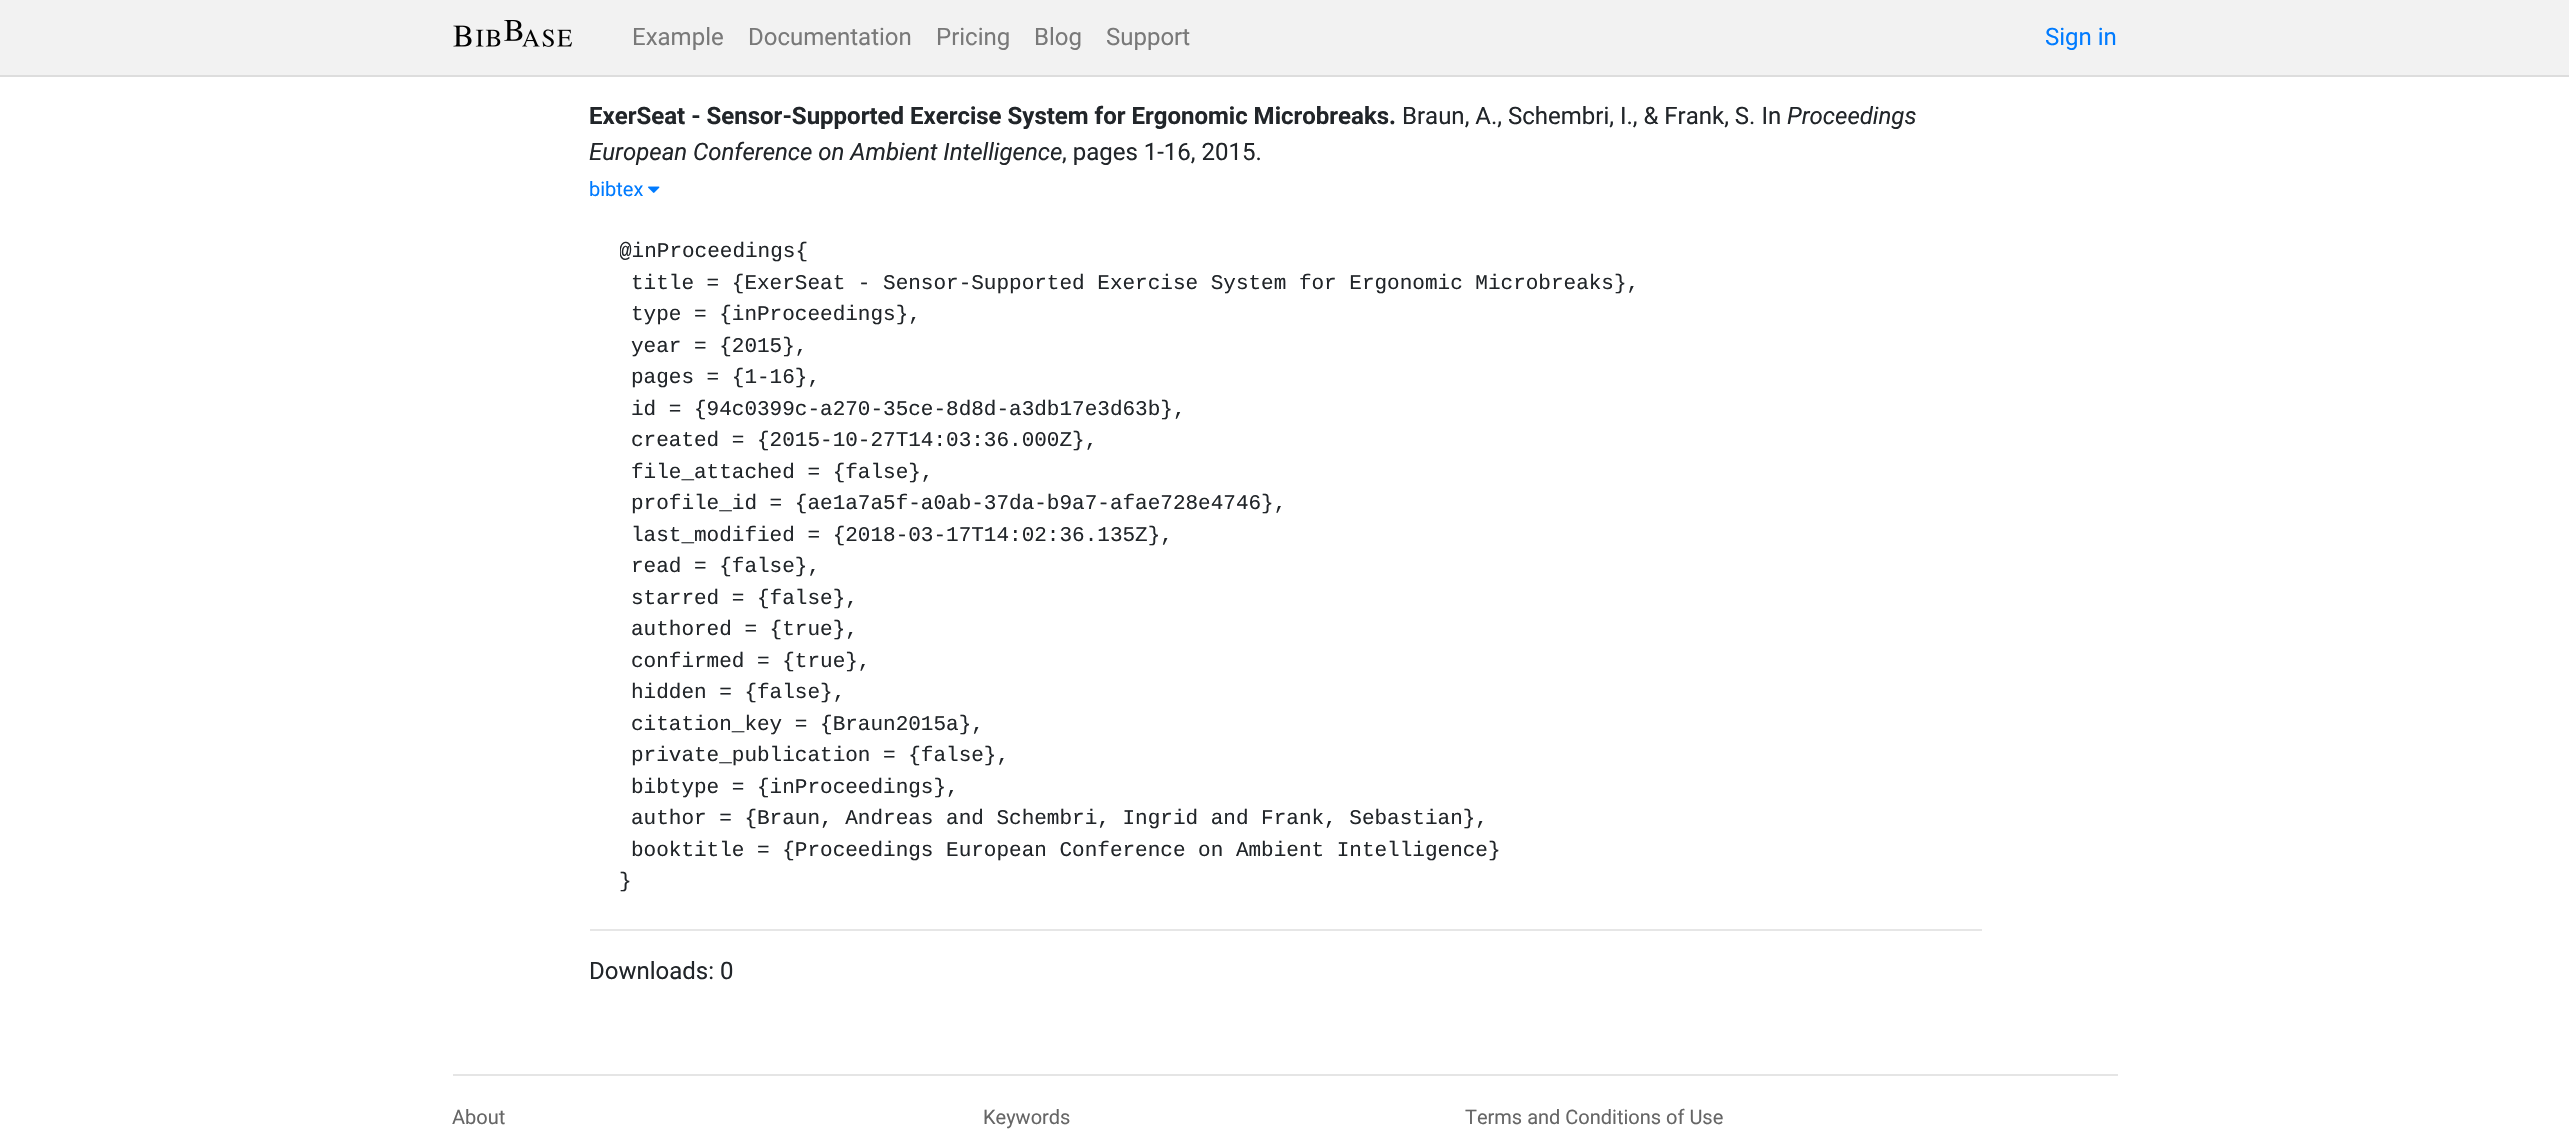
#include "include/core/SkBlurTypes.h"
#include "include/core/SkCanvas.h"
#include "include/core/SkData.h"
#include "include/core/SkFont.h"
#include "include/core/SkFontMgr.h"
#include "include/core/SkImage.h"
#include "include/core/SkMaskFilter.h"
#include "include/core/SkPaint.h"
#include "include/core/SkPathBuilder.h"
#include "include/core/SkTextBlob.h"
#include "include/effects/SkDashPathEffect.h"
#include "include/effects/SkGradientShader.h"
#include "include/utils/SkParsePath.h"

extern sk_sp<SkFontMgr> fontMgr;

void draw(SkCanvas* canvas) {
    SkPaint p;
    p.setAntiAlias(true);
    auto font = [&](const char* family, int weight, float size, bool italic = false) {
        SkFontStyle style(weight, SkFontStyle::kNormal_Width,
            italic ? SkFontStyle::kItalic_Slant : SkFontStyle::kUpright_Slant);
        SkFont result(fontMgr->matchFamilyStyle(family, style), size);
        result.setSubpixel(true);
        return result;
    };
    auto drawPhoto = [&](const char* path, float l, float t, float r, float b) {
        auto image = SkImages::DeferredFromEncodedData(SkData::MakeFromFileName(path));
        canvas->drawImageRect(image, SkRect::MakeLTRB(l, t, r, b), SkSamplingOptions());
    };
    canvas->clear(0xFFFFFFFF);
    p.setColor(0xFFF2F2F2);
    canvas->drawRect(SkRect::MakeLTRB(0, 0, 2569, 75), p);
    p.setColor(0xFFDDDDDD);
    canvas->drawRect(SkRect::MakeLTRB(0, 75, 2569, 77), p);
    drawPhoto("media/1.png", 453, 20, 572, 47);
    auto font1 = font("Roboto", 400, 24);
    p.setColor(0xFF797979);
    {
        const struct { const char* s; float x, y; } items[] = {
            {"Example", 632, 45},
            {"Documentation", 748, 45},
            {"Pricing", 936, 45},
            {"Blog", 1034, 45},
            {"Support", 1106, 45},
        };
        for (auto [s, x, y] : items) {
            canvas->drawString(s, x, y, font1, p);
        }
    }
    p.setColor(0xFF007BFF);
    canvas->drawString("Sign in", 2045, 45, font1, p);
    auto font2 = font("Roboto", 700, 24);
    p.setColor(0xFF212529);
    canvas->drawString("ExerSeat - Sensor-Supported Exercise System for Ergonomic Microbreaks.", 589, 124, font2, p);
    canvas->drawString("Braun, A., Schembri, I., & Frank, S. In", 1402, 124, font1, p);
    auto font3 = font("Roboto", 400, 24, true);
    canvas->drawString("Proceedings", 1787, 124, font3, p);
    canvas->drawString("European Conference on Ambient Intelligence", 589, 160, font3, p);
    canvas->drawString(", pages 1-16, 2015.", 1062, 160, font1, p);
    auto font4 = font("Roboto", 400, 20);
    p.setColor(0xFF007BFF);
    canvas->drawString("bibtex", 589, 196, font4, p);
    drawPhoto("media/2.png", 648, 186, 660, 193);
    canvas->save();
    canvas->clipRect(SkRect::MakeLTRB(620, 237, 1952, 899));
    auto font5 = font("Liberation Mono", 400, 21);
    p.setColor(0xFF212529);
    canvas->drawString("@inProceedings{", 619, 257, font5, p);
    canvas->restore();
    {
        const struct { const char* s; float x, y; } items[] = {
            {"title = {ExerSeat - Sensor-Supported Exercise System for Ergonomic Microbreaks},", 631, 289},
            {"type = {inProceedings},", 631, 320},
            {"year = {2015},", 631, 352},
            {"pages = {1-16},", 631, 383},
            {"id = {94c0399c-a270-35ce-8d8d-a3db17e3d63b},", 631, 415},
            {"created = {2015-10-27T14:03:36.000Z},", 631, 446},
            {"file_attached = {false},", 631, 478},
            {"profile_id = {ae1a7a5f-a0ab-37da-b9a7-afae728e4746},", 631, 509},
            {"last_modified = {2018-03-17T14:02:36.135Z},", 631, 541},
            {"read = {false},", 631, 572},
            {"starred = {false},", 631, 604},
            {"authored = {true},", 631, 635},
            {"confirmed = {true},", 631, 667},
            {"hidden = {false},", 631, 698},
            {"citation_key = {Braun2015a},", 631, 730},
            {"private_publication = {false},", 631, 761},
            {"bibtype = {inProceedings},", 631, 793},
            {"author = {Braun, Andreas and Schembri, Ingrid and Frank, Sebastian},", 631, 824},
            {"booktitle = {Proceedings European Conference on Ambient Intelligence}", 631, 856},
            {"}", 619, 887},
        };
        for (auto [s, x, y] : items) {
            canvas->drawString(s, x, y, font5, p);
        }
    }
    p.setColor(0xFFE6E6E6);
    canvas->drawRect(SkRect::MakeLTRB(590, 929, 1982, 931), p);
    p.setColor(0xFF212529);
    canvas->drawString("Downloads: 0", 589, 979, font1, p);
    p.setColor(0xFFE5E5E5);
    canvas->drawRect(SkRect::MakeLTRB(453, 1074, 2118, 1076), p);
    p.setColor(0xFF666666);
    {
        const struct { const char* s; float x, y; } items[] = {
            {"About", 452, 1124},
            {"Keywords", 983, 1124},
            {"Terms and Conditions of Use", 1465, 1124},
        };
        for (auto [s, x, y] : items) {
            canvas->drawString(s, x, y, font4, p);
        }
    }
}
